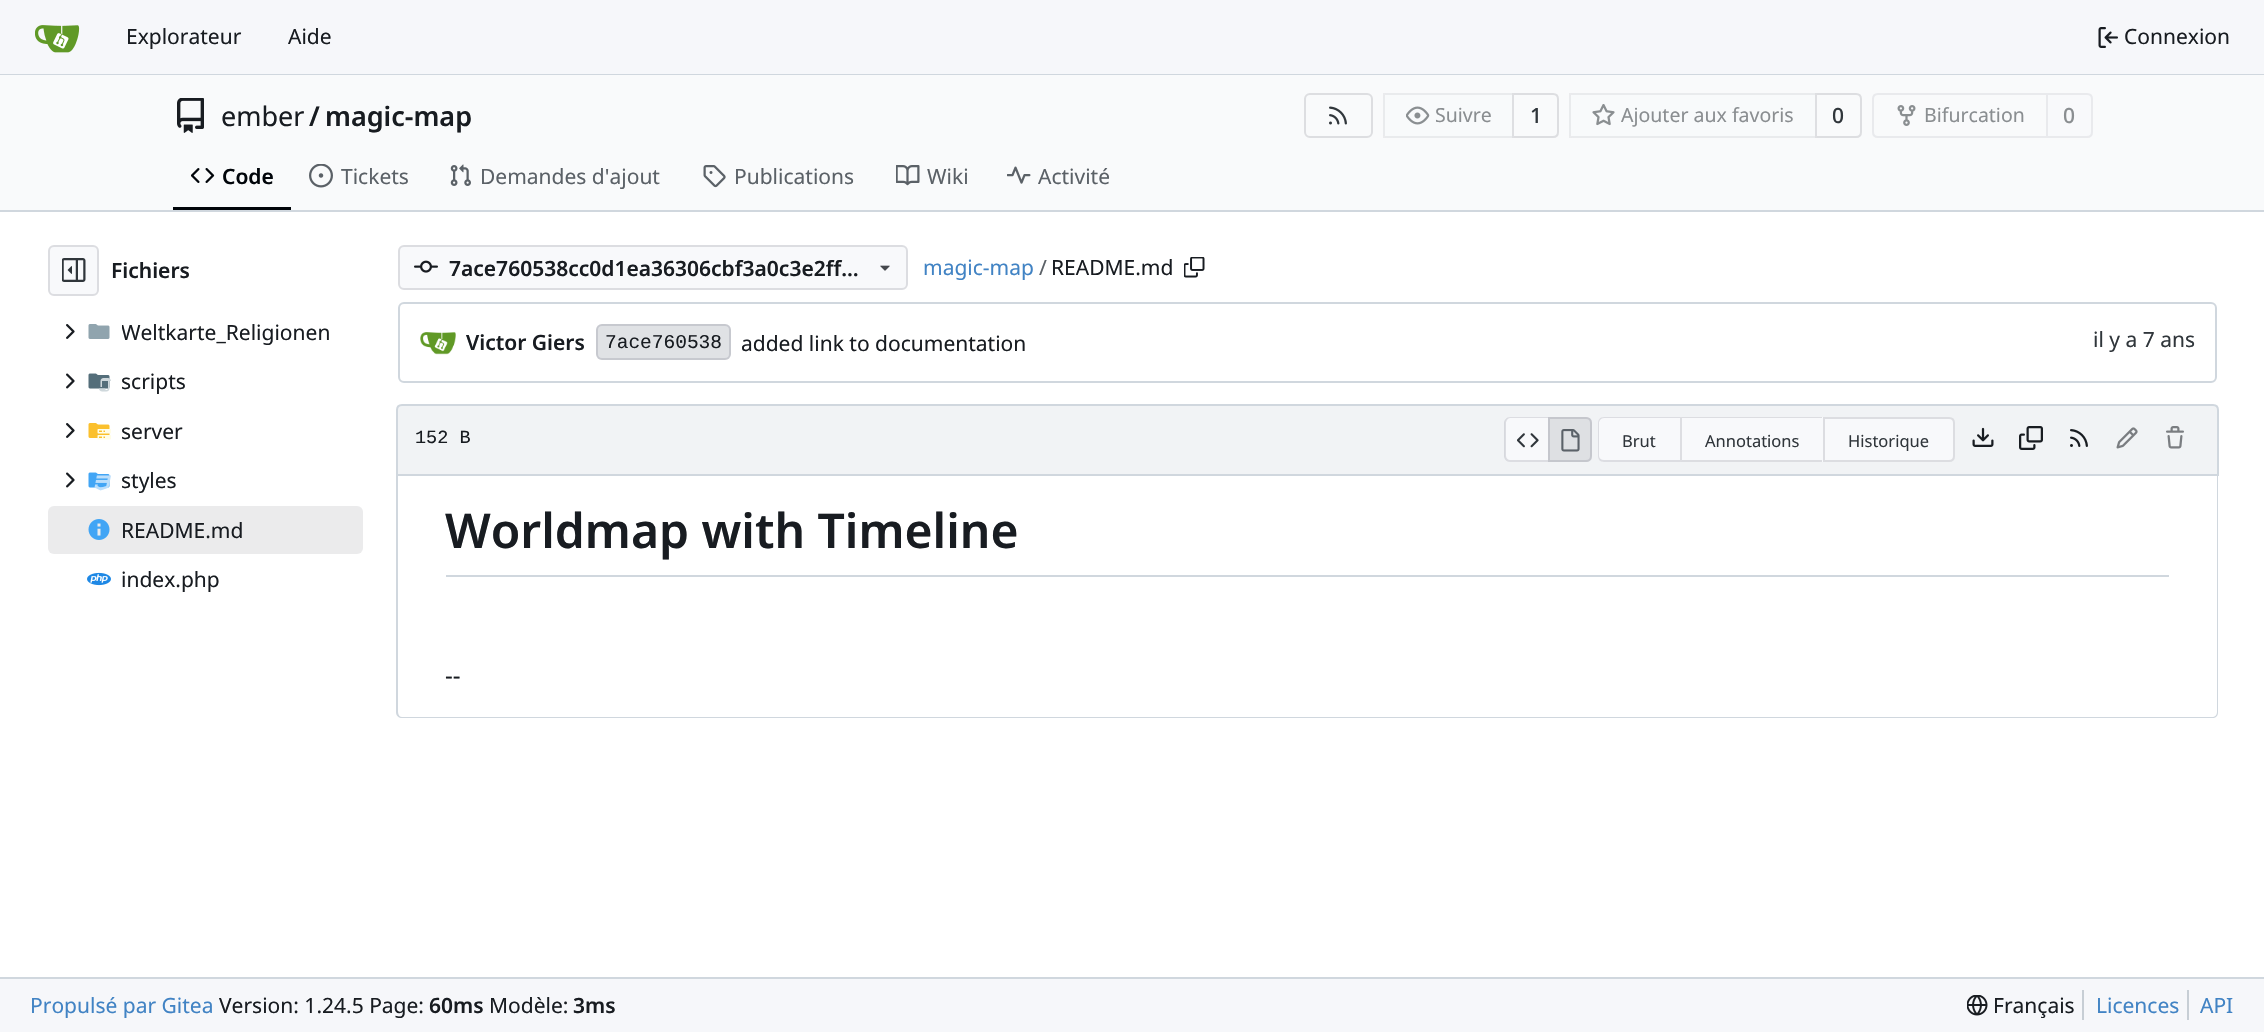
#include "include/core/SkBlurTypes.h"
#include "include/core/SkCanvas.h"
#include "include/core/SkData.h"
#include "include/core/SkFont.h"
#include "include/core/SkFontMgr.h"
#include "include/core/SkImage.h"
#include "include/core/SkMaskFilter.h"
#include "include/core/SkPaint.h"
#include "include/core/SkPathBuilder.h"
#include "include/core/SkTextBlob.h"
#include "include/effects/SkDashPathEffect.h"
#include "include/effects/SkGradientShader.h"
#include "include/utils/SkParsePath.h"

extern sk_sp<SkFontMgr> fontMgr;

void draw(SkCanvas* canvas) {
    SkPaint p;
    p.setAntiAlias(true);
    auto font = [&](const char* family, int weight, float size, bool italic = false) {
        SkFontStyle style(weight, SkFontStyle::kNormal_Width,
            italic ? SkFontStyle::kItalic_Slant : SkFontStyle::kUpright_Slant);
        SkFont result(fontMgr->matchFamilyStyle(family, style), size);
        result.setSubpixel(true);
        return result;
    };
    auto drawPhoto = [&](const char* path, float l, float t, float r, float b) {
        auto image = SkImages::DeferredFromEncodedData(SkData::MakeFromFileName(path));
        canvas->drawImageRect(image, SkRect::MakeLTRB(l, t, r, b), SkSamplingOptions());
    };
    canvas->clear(0xFFFFFFFF);
    p.setColor(0xFFF6F7FA);
    canvas->drawRect(SkRect::MakeLTRB(0, 0, 2264, 74), p);
    p.setColor(0xFFD0D7DE);
    canvas->drawRect(SkRect::MakeLTRB(0, 74, 2264, 75), p);
    drawPhoto("media/1.png", 35, 25, 80, 53);
    auto font1 = font("Noto Sans", 400, 21);
    p.setColor(0xFF181C21);
    canvas->drawString("Explorateur", 126, 44, font1, p);
    canvas->drawString("Aide", 288, 44, font1, p);
    drawPhoto("media/2.png", 2098, 27, 2118, 48);
    canvas->drawString("Connexion", 2124, 44, font1, p);
    p.setColor(0xFFF9FAFB);
    canvas->drawRect(SkRect::MakeLTRB(0, 75, 2264, 210), p);
    drawPhoto("media/3.png", 177, 98, 204, 133);
    auto font2 = font("Noto Sans", 400, 27);
    p.setColor(0xFF181C21);
    canvas->drawString("ember", 221, 126, font2, p);
    auto font3 = font("Noto Sans", 600, 27);
    canvas->drawString("/", 309, 126, font3, p);
    canvas->drawString("magic-map", 325, 126, font3, p);
    p.setStyle(SkPaint::kStroke_Style);
    p.setStrokeWidth(2);
    p.setColor(0xFFDDDEE1);
    canvas->drawRoundRect(SkRect::MakeLTRB(1305, 94, 1372, 137), 5, 5, p);
    drawPhoto("media/4.png", 1329, 106, 1347, 125);
    canvas->drawPath(SkPathBuilder().moveTo(1513, 94).lineTo(1553, 94).cubicTo(1556, 94, 1558, 96, 1558, 99).lineTo(1558, 132).cubicTo(1558, 135, 1556, 137, 1553, 137).lineTo(1513, 137).close().detach(), p);
    p.setStyle(SkPaint::kFill_Style);
    p.setColor(0x8CF8F9FB);
    canvas->drawPath(SkPathBuilder().moveTo(1389, 93).lineTo(1514, 93).lineTo(1514, 138).lineTo(1389, 138).cubicTo(1385.5f, 138, 1383, 135.5f, 1383, 132).lineTo(1383, 99).cubicTo(1383, 95.5f, 1385.5f, 93, 1389, 93).close().detach(), p);
    p.setStyle(SkPaint::kStroke_Style);
    p.setColor(0x0F000017);
    canvas->drawRect(SkRect::MakeLTRB(1384, 94, 1513, 137), p);
    drawPhoto("media/5.png", 1406, 106, 1430, 125);
    auto font4 = font("Noto Sans", 400, 19.5f);
    p.setStyle(SkPaint::kFill_Style);
    p.setColor(0xFF8A8E91);
    canvas->drawString("Suivre", 1435, 122, font4, p);
    auto font5 = font("Noto Sans", 500, 21);
    p.setColor(0xFF30363B);
    canvas->drawString("1", 1530, 123, font5, p);
    p.setStyle(SkPaint::kStroke_Style);
    p.setColor(0xFFDDDEE1);
    canvas->drawPath(SkPathBuilder().moveTo(1816, 94).lineTo(1856, 94).cubicTo(1859, 94, 1861, 96, 1861, 99).lineTo(1861, 132).cubicTo(1861, 135, 1859, 137, 1856, 137).lineTo(1816, 137).close().detach(), p);
    p.setStyle(SkPaint::kFill_Style);
    p.setColor(0x8CF8F9FB);
    canvas->drawPath(SkPathBuilder().moveTo(1575, 93).lineTo(1817, 93).lineTo(1817, 138).lineTo(1575, 138).cubicTo(1571.5f, 138, 1569, 135.5f, 1569, 132).lineTo(1569, 99).cubicTo(1569, 95.5f, 1571.5f, 93, 1575, 93).close().detach(), p);
    p.setStyle(SkPaint::kStroke_Style);
    p.setColor(0x0F000017);
    canvas->drawRect(SkRect::MakeLTRB(1570, 94, 1816, 137), p);
    drawPhoto("media/6.png", 1592, 104, 1615, 126);
    p.setStyle(SkPaint::kFill_Style);
    p.setColor(0xFF8A8E91);
    canvas->drawString("Ajouter aux favoris", 1621, 122, font4, p);
    p.setColor(0xFF30363B);
    canvas->drawString("0", 1832, 123, font5, p);
    p.setStyle(SkPaint::kStroke_Style);
    p.setColor(0xFFE9EAED);
    canvas->drawPath(SkPathBuilder().moveTo(1878, 94).lineTo(2047, 94).lineTo(2047, 137).lineTo(1878, 137).cubicTo(1875, 137, 1873, 135, 1873, 132).lineTo(1873, 99).cubicTo(1873, 96, 1875, 94, 1878, 94).close().detach(), p);
    drawPhoto("media/7.png", 1897, 105, 1916, 126);
    p.setStyle(SkPaint::kFill_Style);
    p.setColor(0xFF8A8E91);
    canvas->drawString("Bifurcation", 1924, 122, font4, p);
    p.setColor(0xFFF8F9FB);
    canvas->drawPath(SkPathBuilder().moveTo(2047, 94).lineTo(2087, 94).cubicTo(2090, 94, 2092, 96, 2092, 99).lineTo(2092, 132).cubicTo(2092, 135, 2090, 137, 2087, 137).lineTo(2047, 137).close().detach(), p);
    p.setStyle(SkPaint::kStroke_Style);
    p.setColor(0xFFE9EAED);
    canvas->drawPath(SkPathBuilder().moveTo(2047, 94).lineTo(2087, 94).cubicTo(2090, 94, 2092, 96, 2092, 99).lineTo(2092, 132).cubicTo(2092, 135, 2090, 137, 2087, 137).lineTo(2047, 137).close().detach(), p);
    p.setStyle(SkPaint::kFill_Style);
    p.setColor(0xFF8A8E91);
    canvas->drawString("0", 2063, 123, font5, p);
    p.setColor(0xFF01050A);
    canvas->drawRect(SkRect::MakeLTRB(173, 207, 291, 210), p);
    drawPhoto("media/8.png", 191, 168, 215, 183);
    auto font6 = font("Noto Sans", 600, 21);
    canvas->drawString("Code", 222, 184, font6, p);
    drawPhoto("media/9.png", 309, 164, 333, 188);
    p.setColor(0xFF5B6167);
    canvas->drawString("Tickets", 341, 184, font1, p);
    drawPhoto("media/10.png", 450, 164, 471, 186);
    canvas->drawString("Demandes d'ajout", 480, 184, font1, p);
    drawPhoto("media/11.png", 703, 165, 726, 188);
    canvas->drawString("Publications", 734, 184, font1, p);
    drawPhoto("media/12.png", 896, 165, 920, 186);
    canvas->drawString("Wiki", 927, 184, font1, p);
    drawPhoto("media/13.png", 1007, 166, 1031, 184);
    canvas->drawString("Activité", 1038, 184, font1, p);
    p.setColor(0xFFD0D7DE);
    canvas->drawRect(SkRect::MakeLTRB(0, 210, 2264, 212), p);
    p.setColor(0xFFF8F9FB);
    canvas->drawRoundRect(SkRect::MakeLTRB(49, 246, 98, 295), 5, 5, p);
    p.setStyle(SkPaint::kStroke_Style);
    p.setColor(0xFFDCDDE1);
    canvas->drawRoundRect(SkRect::MakeLTRB(49, 246, 98, 295), 5, 5, p);
    drawPhoto("media/14.png", 62, 258, 86, 282);
    p.setStyle(SkPaint::kFill_Style);
    p.setColor(0xFF181C21);
    canvas->drawString("Fichiers", 111, 278, font6, p);
    drawPhoto("media/15.png", 66, 324, 75, 339);
    drawPhoto("media/16.png", 88, 324, 110, 339);
    canvas->save();
    canvas->clipRect(SkRect::MakeLTRB(122, 317, 330, 347));
    canvas->drawString("Weltkarte_Religionen", 121, 340, font1, p);
    canvas->restore();
    drawPhoto("media/17.png", 66, 373, 75, 389);
    drawPhoto("media/18.png", 88, 373, 111, 392);
    canvas->save();
    canvas->clipRect(SkRect::MakeLTRB(122, 366, 186, 396));
    canvas->drawString("scripts", 121, 389, font1, p);
    canvas->restore();
    drawPhoto("media/15.png", 66, 423, 75, 438);
    drawPhoto("media/19.png", 88, 423, 111, 440);
    canvas->save();
    canvas->clipRect(SkRect::MakeLTRB(122, 416, 183, 446));
    canvas->drawString("server", 121, 439, font1, p);
    canvas->restore();
    drawPhoto("media/17.png", 66, 472, 75, 488);
    drawPhoto("media/20.png", 88, 472, 111, 491);
    canvas->save();
    canvas->clipRect(SkRect::MakeLTRB(122, 465, 177, 495));
    canvas->drawString("styles", 121, 488, font1, p);
    canvas->restore();
    p.setColor(0xFFEBEBEC);
    canvas->drawRoundRect(SkRect::MakeLTRB(48, 506, 363, 554), 6, 6, p);
    drawPhoto("media/21.png", 88, 519, 110, 540);
    p.setColor(0xFF181C21);
    canvas->drawString("README.md", 121, 538, font1, p);
    drawPhoto("media/22.png", 87, 572, 111, 586);
    canvas->drawString("index.php", 121, 587, font1, p);
    p.setColor(0xFFF8F9FB);
    canvas->drawRoundRect(SkRect::MakeLTRB(399, 246, 907, 289), 5, 5, p);
    p.setStyle(SkPaint::kStroke_Style);
    p.setColor(0xFFDCDDE1);
    canvas->drawRoundRect(SkRect::MakeLTRB(399, 246, 907, 289), 5, 5, p);
    drawPhoto("media/23.png", 414, 260, 438, 273);
    p.setStyle(SkPaint::kFill_Style);
    p.setColor(0xFF181C21);
    canvas->drawString("7ace760538cc0d1ea36306cbf3a0c3e2ff…", 449, 276, font6, p);
    drawPhoto("media/24.png", 880, 265, 890, 271);
    p.setColor(0xFF4183C4);
    canvas->drawString("magic-map", 923, 275, font1, p);
    p.setColor(0xFF5B6167);
    canvas->drawString("/", 1039, 275, font1, p);
    p.setColor(0xFF181C21);
    canvas->drawString("README.md", 1051, 275, font1, p);
    drawPhoto("media/25.png", 1184, 257, 1205, 278);
    p.setStyle(SkPaint::kStroke_Style);
    p.setColor(0xFFD0D7DE);
    canvas->drawRoundRect(SkRect::MakeLTRB(399, 303, 2216, 382), 5, 5, p);
    drawPhoto("media/26.png", 420, 332, 456, 355);
    p.setStyle(SkPaint::kFill_Style);
    p.setColor(0xFF181C21);
    canvas->drawString("Victor Giers", 466, 350, font6, p);
    p.setColor(0xFFE0E2E5);
    canvas->drawRoundRect(SkRect::MakeLTRB(596, 324, 731, 360), 6, 6, p);
    p.setStyle(SkPaint::kStroke_Style);
    p.setColor(0x1C000017);
    canvas->drawRoundRect(SkRect::MakeLTRB(597, 325, 730, 359), 5, 5, p);
    auto font7 = font("Liberation Mono", 400, 19.5f);
    p.setStyle(SkPaint::kFill_Style);
    p.setColor(0xFF181C21);
    canvas->drawString("7ace760538", 605, 348, font7, p);
    canvas->drawString("added link to documentation", 741, 351, font1, p);
    p.setColor(0xFF30363B);
    canvas->drawString("il y a 7 ans", 2093, 347, font1, p);
    p.setColor(0xFFF1F3F5);
    canvas->drawPath(SkPathBuilder().moveTo(402, 405).lineTo(2213, 405).cubicTo(2216, 405, 2218, 407, 2218, 410).lineTo(2218, 475).lineTo(397, 475).lineTo(397, 410).cubicTo(397, 407, 399, 405, 402, 405).close().detach(), p);
    p.setStyle(SkPaint::kStroke_Style);
    p.setColor(0xFFD0D7DE);
    canvas->drawPath(SkPathBuilder().moveTo(402, 405).lineTo(2213, 405).cubicTo(2216, 405, 2218, 407, 2218, 410).lineTo(2218, 475).lineTo(397, 475).lineTo(397, 410).cubicTo(397, 407, 399, 405, 402, 405).close().detach(), p);
    auto font8 = font("Liberation Mono", 400, 18.5f);
    p.setStyle(SkPaint::kFill_Style);
    p.setColor(0xFF181C21);
    canvas->drawString("152 B", 415, 443, font8, p);
    p.setColor(0xFFF8F9FB);
    canvas->drawPath(SkPathBuilder().moveTo(1511, 417).lineTo(1548, 417).lineTo(1548, 462).lineTo(1511, 462).cubicTo(1507.5f, 462, 1505, 459.5f, 1505, 456).lineTo(1505, 423).cubicTo(1505, 419.5f, 1507.5f, 417, 1511, 417).close().detach(), p);
    p.setColor(0x1C000017);
    canvas->drawPath(SkPathBuilder(SkPathFillType::kEvenOdd).moveTo(1510, 417).lineTo(1548, 417).lineTo(1548, 462).lineTo(1510, 462).cubicTo(1507, 462, 1504, 459, 1504, 456).lineTo(1504, 423).cubicTo(1504, 420, 1507, 417, 1510, 417).close().moveTo(1510, 418).lineTo(1548, 418).lineTo(1548, 460).lineTo(1510, 460).cubicTo(1508, 460, 1506, 458, 1506, 456).lineTo(1506, 423).cubicTo(1506, 421, 1508, 418, 1510, 418).close().detach(), p);
    drawPhoto("media/27.png", 1517, 433, 1539, 448);
    p.setColor(0xFFDEE0E3);
    canvas->drawPath(SkPathBuilder().moveTo(1548, 417).lineTo(1586, 417).cubicTo(1589.5f, 417, 1592, 419.5f, 1592, 423).lineTo(1592, 456).cubicTo(1592, 459.5f, 1589.5f, 462, 1586, 462).lineTo(1548, 462).close().detach(), p);
    p.setStyle(SkPaint::kStroke_Style);
    p.setColor(0x1C000017);
    canvas->drawPath(SkPathBuilder().moveTo(1549, 418).lineTo(1586, 418).cubicTo(1589, 418, 1591, 420, 1591, 423).lineTo(1591, 456).cubicTo(1591, 459, 1589, 461, 1586, 461).lineTo(1549, 461).close().detach(), p);
    drawPhoto("media/28.png", 1561, 429, 1580, 452);
    p.setStyle(SkPaint::kFill_Style);
    p.setColor(0xFFF8F9FB);
    canvas->drawPath(SkPathBuilder().moveTo(1604, 417).lineTo(1680, 417).lineTo(1680, 462).lineTo(1604, 462).cubicTo(1600.5f, 462, 1598, 459.5f, 1598, 456).lineTo(1598, 423).cubicTo(1598, 419.5f, 1600.5f, 417, 1604, 417).close().detach(), p);
    p.setColor(0x1C000017);
    canvas->drawPath(SkPathBuilder(SkPathFillType::kEvenOdd).moveTo(1604, 417).lineTo(1680, 417).lineTo(1680, 462).lineTo(1604, 462).cubicTo(1600, 462, 1598, 459, 1598, 456).lineTo(1598, 423).cubicTo(1598, 420, 1600, 417, 1604, 417).close().moveTo(1604, 418).lineTo(1680, 418).lineTo(1680, 460).lineTo(1604, 460).cubicTo(1601, 460, 1599, 458, 1599, 456).lineTo(1599, 423).cubicTo(1599, 421, 1601, 418, 1604, 418).close().detach(), p);
    auto font9 = font("Noto Sans", 400, 16.5f);
    p.setColor(0xFF30363B);
    canvas->drawString("Brut", 1622, 447, font9, p);
    p.setColor(0xFFF8F9FB);
    canvas->drawRect(SkRect::MakeLTRB(1680, 417, 1823, 462), p);
    p.setColor(0xFFDCDDE1);
    canvas->drawPath(SkPathBuilder().moveTo(1680, 417).lineTo(1822, 417).lineTo(1822, 418).lineTo(1682, 418).close().detach(), p);
    canvas->drawPath(SkPathBuilder().moveTo(1822, 462).lineTo(1680, 462).lineTo(1682, 460).lineTo(1822, 460).close().detach(), p);
    p.setColor(0x1C000017);
    canvas->drawPath(SkPathBuilder().moveTo(1680, 462).lineTo(1680, 417).lineTo(1682, 418).lineTo(1682, 460).close().detach(), p);
    p.setColor(0xFF30363B);
    canvas->drawString("Annotations", 1705, 447, font9, p);
    p.setColor(0xFFF8F9FB);
    canvas->drawPath(SkPathBuilder().moveTo(1824, 418).lineTo(1949, 418).cubicTo(1952, 418, 1954, 420, 1954, 423).lineTo(1954, 456).cubicTo(1954, 459, 1952, 461, 1949, 461).lineTo(1824, 461).close().detach(), p);
    p.setStyle(SkPaint::kStroke_Style);
    p.setColor(0xFFDCDDE1);
    canvas->drawPath(SkPathBuilder().moveTo(1824, 418).lineTo(1949, 418).cubicTo(1952, 418, 1954, 420, 1954, 423).lineTo(1954, 456).cubicTo(1954, 459, 1952, 461, 1949, 461).lineTo(1824, 461).close().detach(), p);
    p.setStyle(SkPaint::kFill_Style);
    p.setColor(0xFF30363B);
    canvas->drawString("Historique", 1848, 447, font9, p);
    drawPhoto("media/29.png", 1972, 427, 1994, 447);
    drawPhoto("media/30.png", 2019, 426, 2043, 450);
    drawPhoto("media/31.png", 2070, 429, 2088, 447);
    drawPhoto("media/32.png", 2116, 427, 2138, 449);
    drawPhoto("media/33.png", 2166, 426, 2184, 449);
    p.setColor(0xFFD0D7DE);
    canvas->drawPath(SkPathBuilder(SkPathFillType::kEvenOdd).moveTo(396, 476).lineTo(2218, 476).lineTo(2218, 712).cubicTo(2218, 716, 2216, 718, 2212, 718).lineTo(402, 718).cubicTo(399, 718, 396, 716, 396, 712).close().moveTo(398, 476).lineTo(2217, 476).lineTo(2217, 712).cubicTo(2217, 715, 2215, 717, 2212, 717).lineTo(402, 717).cubicTo(400, 717, 398, 715, 398, 712).close().detach(), p);
    canvas->drawRect(SkRect::MakeLTRB(446, 575, 2169, 577), p);
    auto font10 = font("Noto Sans", 600, 48);
    p.setColor(0xFF181C21);
    canvas->drawString("Worldmap with Timeline", 445, 548, font10, p);
    auto font11 = font("Noto Sans", 400, 24);
    canvas->drawString("--", 445, 684, font11, p);
    p.setColor(0xFFF6F7FA);
    canvas->drawRect(SkRect::MakeLTRB(0, 979, 2264, 1032), p);
    p.setColor(0xFFD0D7DE);
    canvas->drawRect(SkRect::MakeLTRB(0, 977, 2264, 979), p);
    p.setColor(0xFF4183C4);
    canvas->drawString("Propulsé par Gitea", 30, 1013, font1, p);
    p.setColor(0xFF181C21);
    canvas->drawString("Version: 1.24.5 Page:", 219, 1013, font1, p);
    canvas->drawString("60ms", 429, 1013, font6, p);
    canvas->drawString("Modèle:", 489, 1013, font1, p);
    canvas->drawString("3ms", 573, 1013, font6, p);
    drawPhoto("media/34.png", 1967, 995, 1988, 1016);
    canvas->drawString("Français", 1993, 1013, font1, p);
    p.setColor(0xFFC7CED5);
    canvas->drawRect(SkRect::MakeLTRB(2082, 990, 2084, 1020), p);
    p.setColor(0xFF4183C4);
    canvas->drawString("Licences", 2096, 1013, font1, p);
    p.setColor(0xFFC7CED5);
    canvas->drawRect(SkRect::MakeLTRB(2187, 990, 2189, 1020), p);
    p.setColor(0xFF4183C4);
    canvas->drawString("API", 2200, 1013, font1, p);
}
